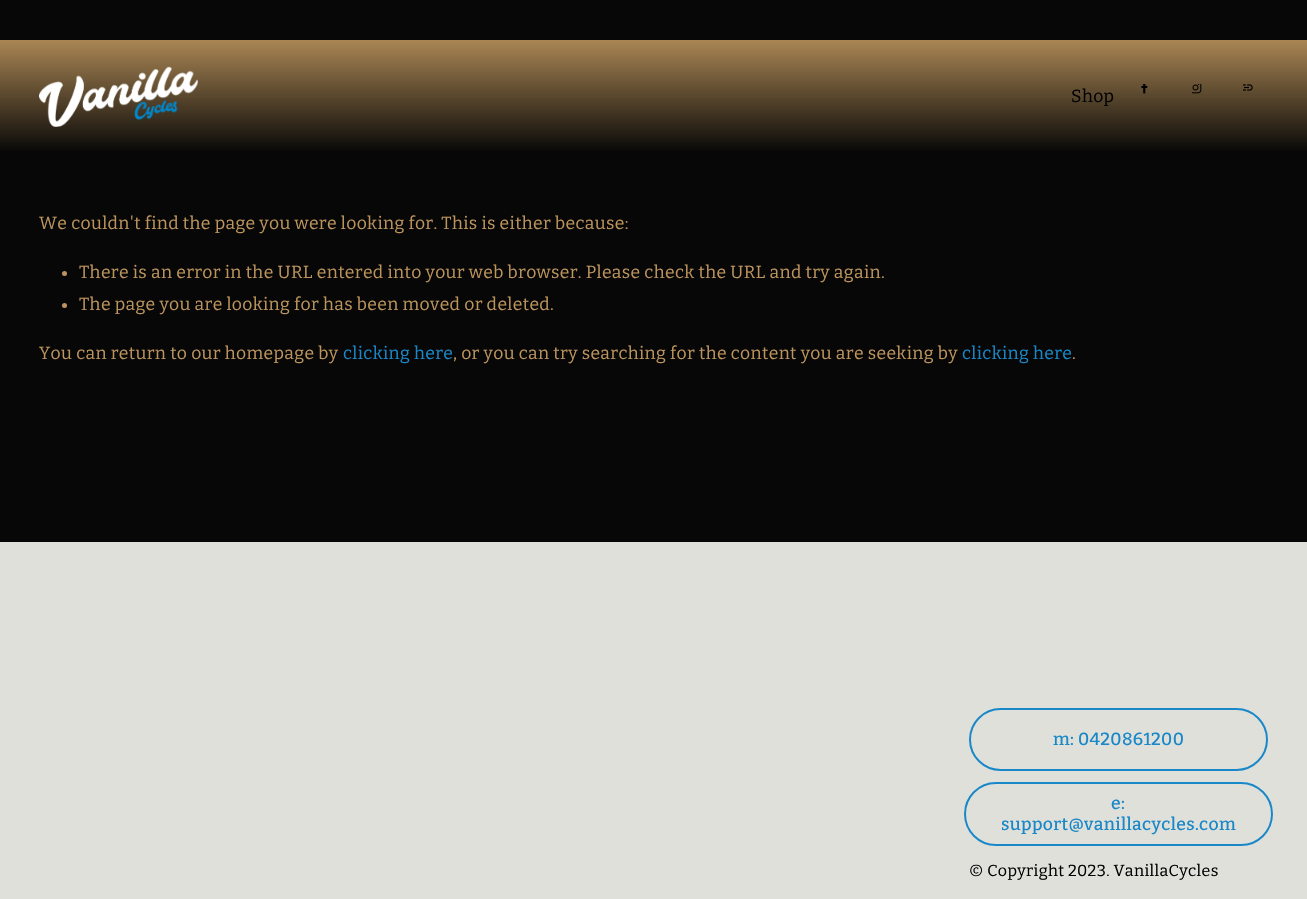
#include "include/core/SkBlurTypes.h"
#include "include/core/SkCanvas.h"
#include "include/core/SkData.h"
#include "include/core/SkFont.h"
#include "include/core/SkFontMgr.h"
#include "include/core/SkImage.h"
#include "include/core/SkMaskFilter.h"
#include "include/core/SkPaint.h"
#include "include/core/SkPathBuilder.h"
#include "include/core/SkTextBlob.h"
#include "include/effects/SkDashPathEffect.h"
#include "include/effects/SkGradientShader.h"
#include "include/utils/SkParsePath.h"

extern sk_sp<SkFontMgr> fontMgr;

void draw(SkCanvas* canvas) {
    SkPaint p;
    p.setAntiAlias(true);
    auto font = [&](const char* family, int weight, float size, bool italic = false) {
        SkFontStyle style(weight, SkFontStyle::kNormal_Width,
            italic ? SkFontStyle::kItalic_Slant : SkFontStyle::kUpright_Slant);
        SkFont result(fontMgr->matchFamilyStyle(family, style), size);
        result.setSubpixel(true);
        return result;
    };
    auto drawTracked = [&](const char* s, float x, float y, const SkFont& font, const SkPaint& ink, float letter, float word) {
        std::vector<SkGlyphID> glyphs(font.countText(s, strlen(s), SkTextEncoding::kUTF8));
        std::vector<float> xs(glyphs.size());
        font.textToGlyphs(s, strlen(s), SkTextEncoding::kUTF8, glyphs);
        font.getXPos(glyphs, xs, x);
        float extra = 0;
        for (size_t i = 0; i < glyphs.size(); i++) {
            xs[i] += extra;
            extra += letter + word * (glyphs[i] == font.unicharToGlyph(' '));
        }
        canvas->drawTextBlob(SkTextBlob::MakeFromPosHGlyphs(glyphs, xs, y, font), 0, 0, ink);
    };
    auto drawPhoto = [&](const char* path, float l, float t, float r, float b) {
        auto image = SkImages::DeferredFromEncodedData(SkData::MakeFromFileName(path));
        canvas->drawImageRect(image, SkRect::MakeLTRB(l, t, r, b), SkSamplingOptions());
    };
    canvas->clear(0xFF070707);
    {
        const SkColor colors[] = {0xFFAA8654, 0xFF070707};
        const float stops[] = {0, 1};
        const SkPoint ends[] = {{654, 40}, {654, 153}};
        p.setShader(SkGradientShader::MakeLinear(ends, colors, stops, 2, SkTileMode::kClamp));
        p.setAlpha(255);
    }
    canvas->drawRect(SkRect::MakeLTRB(0, 40, 1307, 151), p);
    drawPhoto("media/1.png", 39, 66, 198, 127);
    auto font1 = font("Bitter", 400, 17.55f);
    p.setShader(nullptr);
    p.setColor(0xFF000000);
    drawTracked("Shop", 1071, 102, font1, p, 0.35f, 0);
    drawPhoto("media/2.png", 1141, 84, 1148, 94);
    drawPhoto("media/3.png", 1192, 84, 1202, 94);
    drawPhoto("media/4.png", 1243, 84, 1253, 91);
    p.setColor(0xFFBC945C);
    drawTracked("We couldn't find the page you were looking for. This is either because:", 39, 229, font1, p, 0.35f, 0);
    canvas->drawCircle(64.5f, 273.5f, 2.5f, p);
    drawTracked("There is an error in the URL entered into your web browser. Please check the URL and try again.", 79, 278, font1, p, 0.35f, 0);
    canvas->drawCircle(64.5f, 305.5f, 2.5f, p);
    drawTracked("The page you are looking for has been moved or deleted.", 79, 310, font1, p, 0.35f, 0);
    drawTracked("You can return to our homepage by", 39, 359, font1, p, 0.35f, 0);
    p.setColor(0xFF1988C8);
    drawTracked("clicking here", 343, 359, font1, p, 0.35f, 0);
    p.setColor(0xFFBC945C);
    drawTracked(", or you can try searching for the content you are seeking by", 453, 359, font1, p, 0.35f, 0);
    p.setColor(0xFF1988C8);
    drawTracked("clicking here", 962, 359, font1, p, 0.35f, 0);
    p.setColor(0xFFBC945C);
    drawTracked(".", 1072, 359, font1, p, 0.35f, 0);
    p.setColor(0xFFE0E0DB);
    canvas->drawRect(SkRect::MakeLTRB(0, 542, 1307, 899), p);
    p.setStyle(SkPaint::kStroke_Style);
    p.setStrokeWidth(2);
    p.setColor(0xFF1988C8);
    canvas->drawRoundRect(SkRect::MakeLTRB(970, 709, 1267, 770), 30.5f, 30.5f, p);
    auto font2 = font("Bitter", 500, 17.55f);
    p.setStyle(SkPaint::kFill_Style);
    drawTracked("m: 0420861200", 1053, 745, font2, p, 0.35f, 0);
    p.setStyle(SkPaint::kStroke_Style);
    canvas->drawRoundRect(SkRect::MakeLTRB(965, 783, 1272, 845), 31, 31, p);
    p.setStyle(SkPaint::kFill_Style);
    drawTracked("e:", 1111, 809, font2, p, 0.35f, 0);
    drawTracked("support@vanillacycles.com", 1001, 830, font2, p, 0.35f, 0);
    auto font3 = font("Bitter", 400, 16);
    p.setColor(0xFF000000);
    drawTracked("© Copyright 2023. VanillaCycles", 969, 876, font3, p, 0.35f, 0);
}
